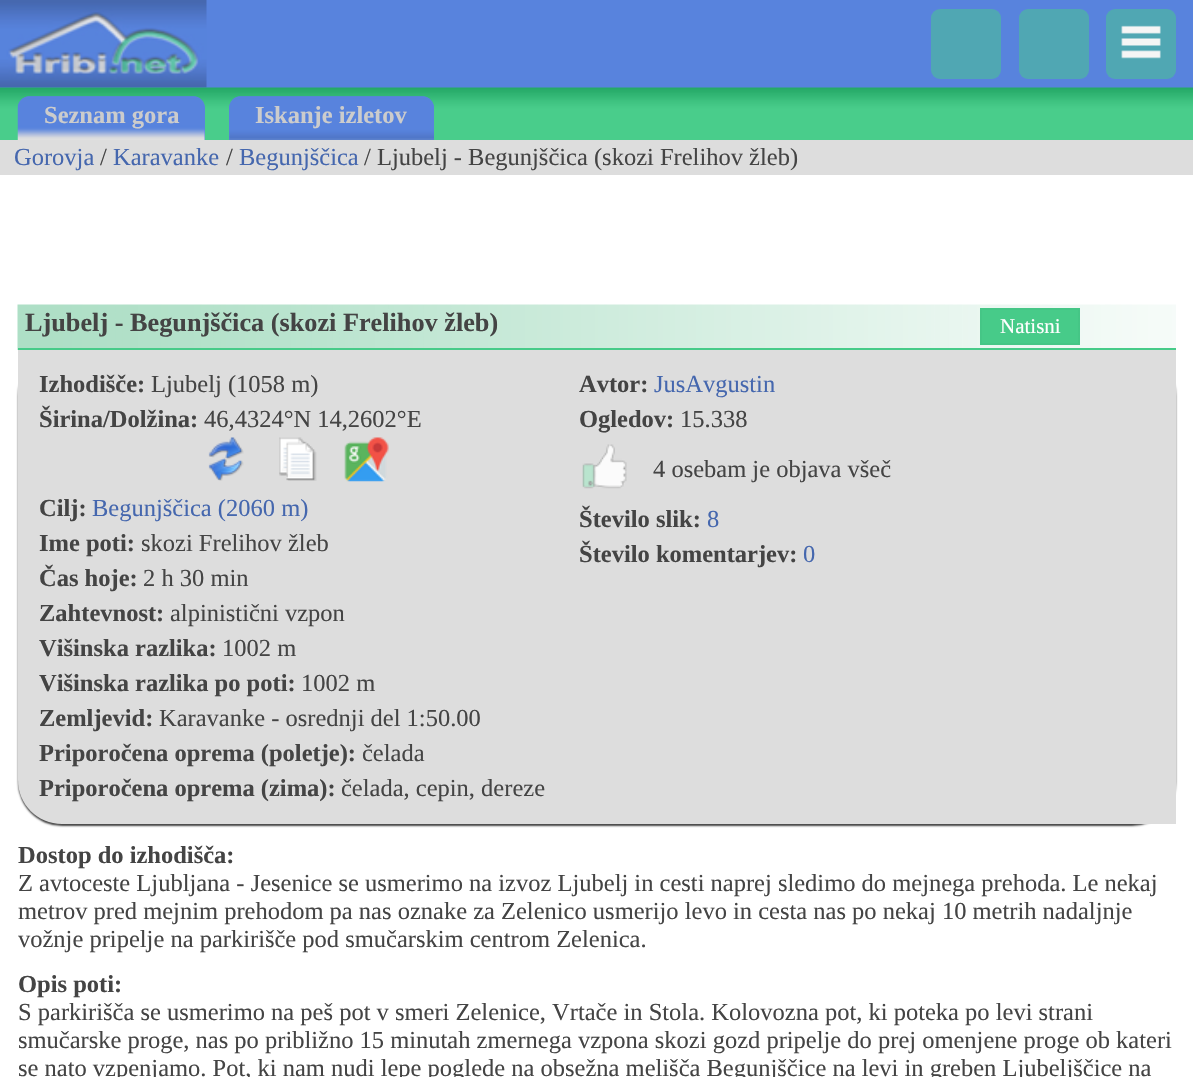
#include "include/core/SkBlurTypes.h"
#include "include/core/SkCanvas.h"
#include "include/core/SkData.h"
#include "include/core/SkFont.h"
#include "include/core/SkFontMgr.h"
#include "include/core/SkImage.h"
#include "include/core/SkMaskFilter.h"
#include "include/core/SkPaint.h"
#include "include/core/SkPathBuilder.h"
#include "include/core/SkTextBlob.h"
#include "include/effects/SkDashPathEffect.h"
#include "include/effects/SkGradientShader.h"
#include "include/utils/SkParsePath.h"

extern sk_sp<SkFontMgr> fontMgr;

void draw(SkCanvas* canvas) {
    SkPaint p;
    p.setAntiAlias(true);
    auto font = [&](const char* family, int weight, float size, bool italic = false) {
        SkFontStyle style(weight, SkFontStyle::kNormal_Width,
            italic ? SkFontStyle::kItalic_Slant : SkFontStyle::kUpright_Slant);
        SkFont result(fontMgr->matchFamilyStyle(family, style), size);
        result.setSubpixel(true);
        return result;
    };
    auto drawPhoto = [&](const char* path, float l, float t, float r, float b) {
        auto image = SkImages::DeferredFromEncodedData(SkData::MakeFromFileName(path));
        canvas->drawImageRect(image, SkRect::MakeLTRB(l, t, r, b), SkSamplingOptions());
    };
    canvas->clear(0xFF5883DD);
    drawPhoto("media/1.png", 0, 0, 207, 88);
    p.setColor(0xFF50A7B3);
    canvas->drawRoundRect(SkRect::MakeLTRB(931, 9, 1001, 79), 9, 9, p);
    canvas->drawRoundRect(SkRect::MakeLTRB(1019, 9, 1089, 79), 9, 9, p);
    canvas->drawRoundRect(SkRect::MakeLTRB(1106, 9, 1176, 79), 9, 9, p);
    drawPhoto("media/2.png", 1121, 25, 1161, 59);
    drawPhoto("media/3.png", 0, 87, 1193, 140);
    p.setColor(0xFF5883DD);
    canvas->drawPath(SkPathBuilder().moveTo(30, 96).lineTo(193, 96).cubicTo(199.5f, 96, 205, 101.5f, 205, 108).lineTo(205, 140).lineTo(18, 140).lineTo(18, 108).cubicTo(18, 101.5f, 23.5f, 96, 30, 96).close().detach(), p);
    drawPhoto("media/4.png", 17, 96, 205, 140);
    auto font1 = font("Liberation Serif", 700, 24.5f);
    p.setColor(0xFFCCCCCC);
    canvas->drawString("Seznam gora", 44, 123, font1, p);
    p.setColor(0xFF5883DD);
    canvas->drawPath(SkPathBuilder().moveTo(241, 96).lineTo(422, 96).cubicTo(428.5f, 96, 434, 101.5f, 434, 108).lineTo(434, 140).lineTo(229, 140).lineTo(229, 108).cubicTo(229, 101.5f, 234.5f, 96, 241, 96).close().detach(), p);
    drawPhoto("media/5.png", 229, 96, 434, 140);
    p.setColor(0xFFCCCCCC);
    canvas->drawString("Iskanje izletov", 255, 123, font1, p);
    p.setColor(0xFFFFFFFF);
    canvas->drawRect(SkRect::MakeLTRB(0, 175, 1193, 1077), p);
    p.setColor(0xFFDDDDDD);
    canvas->drawRect(SkRect::MakeLTRB(0, 140, 1193, 175), p);
    auto font2 = font("Liberation Serif", 400, 24.5f);
    p.setColor(0xFF4567AE);
    canvas->drawString("Gorovja", 14, 165, font2, p);
    p.setColor(0xFF444444);
    canvas->drawString("/", 100, 165, font2, p);
    p.setColor(0xFF4567AE);
    canvas->drawString("Karavanke", 113, 165, font2, p);
    p.setColor(0xFF444444);
    canvas->drawString("/", 226, 165, font2, p);
    p.setColor(0xFF4567AE);
    canvas->drawString("Begunjščica", 239, 165, font2, p);
    p.setColor(0xFF444444);
    canvas->drawString("/ Ljubelj - Begunjščica (skozi Frelihov žleb)", 364, 165, font2, p);
    drawPhoto("media/6.png", 17, 304, 1176, 350);
    p.setColor(0xFF47CB89);
    canvas->drawRect(SkRect::MakeLTRB(18, 348, 1176, 350), p);
    auto font3 = font("Liberation Serif", 700, 26.25f);
    p.setColor(0xFF444444);
    canvas->drawString("Ljubelj - Begunjščica (skozi Frelihov žleb)", 25, 331, font3, p);
    p.setColor(0xFF47CB89);
    canvas->drawRect(SkRect::MakeLTRB(981, 309, 1079, 344), p);
    p.setStyle(SkPaint::kStroke_Style);
    p.setStrokeWidth(2);
    p.setColor(0xFF45C686);
    canvas->drawRect(SkRect::MakeLTRB(981, 309, 1079, 344), p);
    auto font4 = font("Liberation Serif", 400, 21);
    p.setStyle(SkPaint::kFill_Style);
    p.setColor(0xFFFFFFFF);
    canvas->drawString("Natisni", 1000, 333, font4, p);
    p.setColor(0xFF444444);
    p.setMaskFilter(SkMaskFilter::MakeBlur(kNormal_SkBlurStyle, 1));
    canvas->drawRoundRect(SkRect::MakeLTRB(18, 352, 1176, 826), 44, 44, p);
    p.setMaskFilter(nullptr);
    p.setColor(0xFFDDDDDD);
    canvas->drawPath(SkPathBuilder().moveTo(18, 350).lineTo(1176, 350).lineTo(1176, 824).lineTo(62, 824).cubicTo(37.5f, 824, 18, 804.5f, 18, 780).close().detach(), p);
    p.setColor(0xFF444444);
    canvas->drawString("Izhodišče:", 39, 392, font1, p);
    canvas->drawString("Ljubelj (1058 m)", 151, 392, font2, p);
    canvas->drawString("Širina/Dolžina:", 39, 427, font1, p);
    canvas->drawString("46,4324°N 14,2602°E", 204, 427, font2, p);
    drawPhoto("media/7.png", 208, 437, 244, 481);
    drawPhoto("media/8.png", 279, 437, 317, 481);
    drawPhoto("media/9.png", 344, 437, 389, 482);
    canvas->drawString("Cilj:", 39, 516, font1, p);
    p.setColor(0xFF4567AE);
    canvas->drawString("Begunjščica (2060 m)", 92, 516, font2, p);
    p.setColor(0xFF444444);
    canvas->drawString("Ime poti:", 39, 551, font1, p);
    canvas->drawString("skozi Frelihov žleb", 141, 551, font2, p);
    canvas->drawString("Čas hoje:", 39, 586, font1, p);
    canvas->drawString("2 h 30 min", 143, 586, font2, p);
    canvas->drawString("Zahtevnost:", 39, 621, font1, p);
    canvas->drawString("alpinistični vzpon", 170, 621, font2, p);
    canvas->drawString("Višinska razlika:", 39, 656, font1, p);
    canvas->drawString("1002 m", 222, 656, font2, p);
    canvas->drawString("Višinska razlika po poti:", 39, 691, font1, p);
    canvas->drawString("1002 m", 301, 691, font2, p);
    canvas->drawString("Zemljevid:", 39, 726, font1, p);
    canvas->drawString("Karavanke - osrednji del 1:50.00", 159, 726, font2, p);
    canvas->drawString("Priporočena oprema (poletje):", 39, 761, font1, p);
    canvas->drawString("čelada", 362, 761, font2, p);
    canvas->drawString("Priporočena oprema (zima):", 39, 796, font1, p);
    canvas->drawString("čelada, cepin, dereze", 341, 796, font2, p);
    canvas->drawString("Avtor:", 579, 392, font1, p);
    p.setColor(0xFF4567AE);
    canvas->drawString("JusAvgustin", 654, 392, font2, p);
    p.setColor(0xFF444444);
    canvas->drawString("Ogledov:", 579, 427, font1, p);
    canvas->drawString("15.338", 680, 427, font2, p);
    drawPhoto("media/10.png", 582, 444, 627, 489);
    canvas->drawString("4 osebam je objava všeč", 653, 477, font2, p);
    canvas->drawString("Število slik:", 579, 527, font1, p);
    p.setColor(0xFF4567AE);
    canvas->drawString("8", 707, 527, font2, p);
    p.setColor(0xFF444444);
    canvas->drawString("Število komentarjev:", 579, 562, font1, p);
    p.setColor(0xFF4567AE);
    canvas->drawString("0", 803, 562, font2, p);
    p.setColor(0xFF444444);
    canvas->drawString("Dostop do izhodišča:", 18, 863, font1, p);
    {
        const struct { const char* s; float x, y; } items[] = {
            {"Z avtoceste Ljubljana - Jesenice se usmerimo na izvoz Ljubelj in cesti naprej sledimo do mejnega prehoda. Le nekaj", 18, 891},
            {"metrov pred mejnim prehodom pa nas oznake za Zelenico usmerijo levo in cesta nas po nekaj 10 metrih nadaljnje", 18, 919},
            {"vožnje pripelje na parkirišče pod smučarskim centrom Zelenica.", 18, 947},
        };
        for (auto [s, x, y] : items) {
            canvas->drawString(s, x, y, font2, p);
        }
    }
    canvas->drawString("Opis poti:", 18, 992, font1, p);
    {
        const struct { const char* s; float x, y; } items[] = {
            {"S parkirišča se usmerimo na peš pot v smeri Zelenice, Vrtače in Stola. Kolovozna pot, ki poteka po levi strani", 18, 1020},
            {"smučarske proge, nas po približno 15 minutah zmernega vzpona skozi gozd pripelje do prej omenjene proge ob kateri", 18, 1048},
            {"se nato vzpenjamo. Pot, ki nam nudi lepe poglede na obsežna melišča Begunjščice na levi in greben Ljubeljščice na", 18, 1076},
        };
        for (auto [s, x, y] : items) {
            canvas->drawString(s, x, y, font2, p);
        }
    }
}
